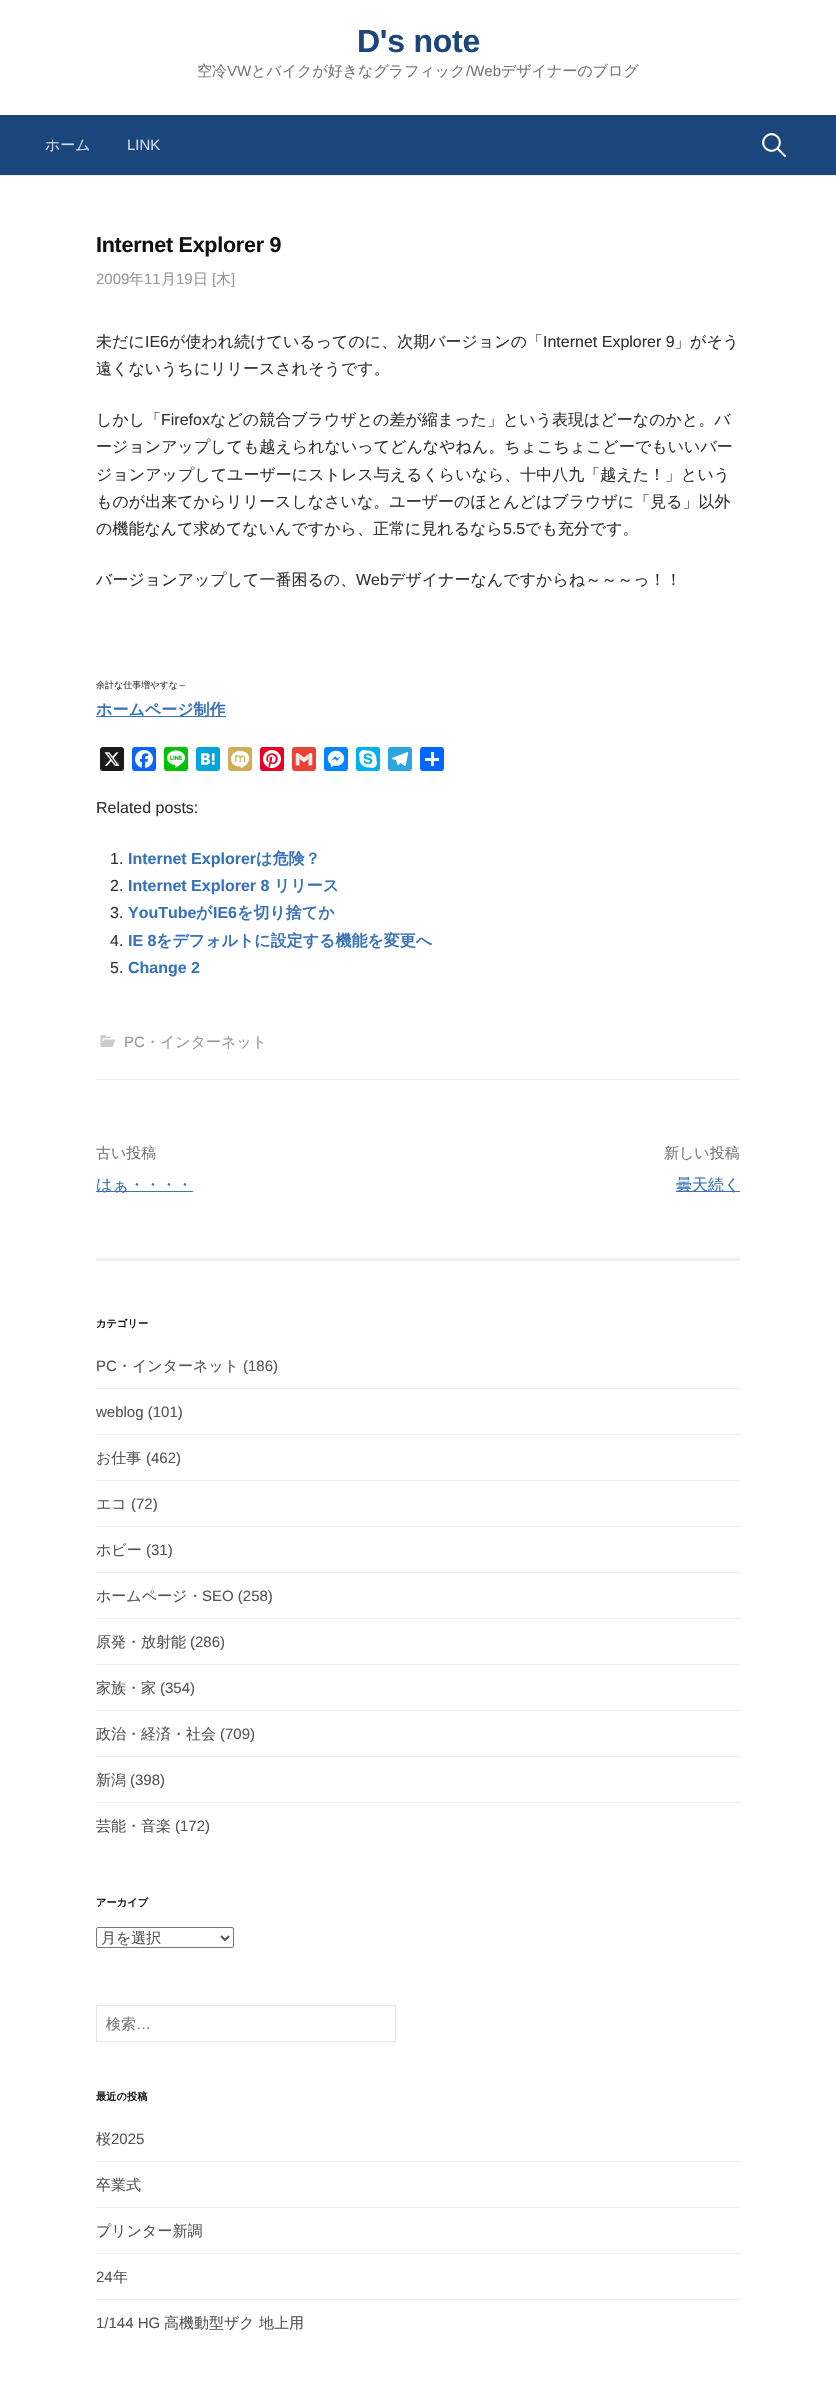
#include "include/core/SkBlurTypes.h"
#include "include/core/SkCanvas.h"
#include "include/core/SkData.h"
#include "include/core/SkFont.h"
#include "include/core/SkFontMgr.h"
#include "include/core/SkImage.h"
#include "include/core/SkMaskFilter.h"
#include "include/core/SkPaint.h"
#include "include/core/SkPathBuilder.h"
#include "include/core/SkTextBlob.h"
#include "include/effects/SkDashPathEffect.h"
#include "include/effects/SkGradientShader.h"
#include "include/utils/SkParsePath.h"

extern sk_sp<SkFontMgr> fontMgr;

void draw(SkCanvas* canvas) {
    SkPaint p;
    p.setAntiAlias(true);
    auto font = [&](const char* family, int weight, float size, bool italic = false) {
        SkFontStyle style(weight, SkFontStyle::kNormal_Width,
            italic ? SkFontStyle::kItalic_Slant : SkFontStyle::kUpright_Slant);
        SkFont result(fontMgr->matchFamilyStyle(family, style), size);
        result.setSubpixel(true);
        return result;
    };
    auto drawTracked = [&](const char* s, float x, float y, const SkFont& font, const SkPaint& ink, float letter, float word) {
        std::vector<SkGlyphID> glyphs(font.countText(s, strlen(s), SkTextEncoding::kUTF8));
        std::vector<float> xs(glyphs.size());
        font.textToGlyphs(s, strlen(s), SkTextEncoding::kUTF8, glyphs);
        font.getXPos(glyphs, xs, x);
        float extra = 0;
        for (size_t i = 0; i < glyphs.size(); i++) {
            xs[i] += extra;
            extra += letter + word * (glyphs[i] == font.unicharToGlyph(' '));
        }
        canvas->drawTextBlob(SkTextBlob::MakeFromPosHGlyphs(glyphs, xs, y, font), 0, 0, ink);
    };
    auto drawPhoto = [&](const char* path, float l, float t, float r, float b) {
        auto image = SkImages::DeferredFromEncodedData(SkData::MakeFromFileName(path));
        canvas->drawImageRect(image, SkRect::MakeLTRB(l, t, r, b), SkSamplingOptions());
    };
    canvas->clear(0xFFFFFFFF);
    p.setColor(0xFFEEEEEE);
    canvas->drawRect(SkRect::MakeLTRB(0, 175, 836, 176), p);
    auto font1 = font("Liberation Sans", 700, 32);
    p.setColor(0xFF1B467B);
    drawTracked("D's note", 357, 52, font1, p, -0.25f, 0);
    auto font2 = font("WenQuanYi Zen Hei", 500, 15);
    p.setColor(0xFF777777);
    canvas->drawString("空冷", 197, 76, font2, p);
    auto font3 = font("Liberation Sans", 400, 15);
    canvas->drawString("VW", 227, 76, font3, p);
    canvas->drawString("とバイクが好きなグラフィック", 251, 76, font2, p);
    canvas->drawString("/Web", 466, 76, font3, p);
    canvas->drawString("デザイナーのブログ", 501, 76, font2, p);
    p.setColor(0xFF1B467B);
    canvas->drawRect(SkRect::MakeLTRB(0, 115, 836, 175), p);
    p.setColor(0xFFD1DAE5);
    canvas->drawString("ホーム", 45, 150, font2, p);
    canvas->drawString("LINK", 127, 150, font3, p);
    drawPhoto("media/1.png", 762, 133, 786, 157);
    p.setColor(0xFFEEEEEE);
    canvas->drawRect(SkRect::MakeLTRB(96, 1079, 740, 1080), p);
    auto font4 = font("Liberation Sans", 700, 21.5f);
    p.setColor(0xFF111111);
    drawTracked("Internet Explorer 9", 96, 252, font4, p, -0.25f, 0);
    p.setColor(0xFF999999);
    canvas->drawString("2009", 96, 284, font3, p);
    canvas->drawString("年", 129, 284, font2, p);
    canvas->drawString("11", 144, 284, font3, p);
    canvas->drawString("月", 161, 284, font2, p);
    canvas->drawString("19", 176, 284, font3, p);
    canvas->drawString("日", 193, 284, font2, p);
    canvas->drawString("[", 212, 284, font3, p);
    canvas->drawString("木", 216, 284, font2, p);
    canvas->drawString("]", 231, 284, font3, p);
    auto font5 = font("WenQuanYi Zen Hei", 500, 16);
    p.setColor(0xFF333333);
    canvas->drawString("未だに", 96, 347, font5, p);
    auto font6 = font("Liberation Sans", 400, 16);
    canvas->drawString("IE6", 145, 347, font6, p);
    canvas->drawString("が使われ続けているってのに、次期バージョンの「", 169, 347, font5, p);
    canvas->drawString("Internet Explorer 9", 543, 347, font6, p);
    {
        const struct { const char* s; float x, y; } items[] = {
            {"」がそう", 674, 347},
            {"遠くないうちにリリースされそうです。", 96, 374},
            {"しかし「", 96, 425},
        };
        for (auto [s, x, y] : items) {
            canvas->drawString(s, x, y, font5, p);
        }
    }
    canvas->drawString("Firefox", 161, 425, font6, p);
    {
        const struct { const char* s; float x, y; } items[] = {
            {"などの競合ブラウザとの差が縮まった」という表現はどーなのかと。バ", 210, 425},
            {"ージョンアップしても越えられないってどんなやねん。ちょこちょこどーでもいいバー", 96, 452},
            {"ジョンアップしてユーザーにストレス与えるくらいなら、十中八九「越えた！」という", 96, 480},
            {"ものが出来てからリリースしなさいな。ユーザーのほとんどはブラウザに「見る」以外", 96, 507},
            {"の機能なんて求めてないんですから、正常に見れるなら", 96, 534},
        };
        for (auto [s, x, y] : items) {
            canvas->drawString(s, x, y, font5, p);
        }
    }
    canvas->drawString("5.5", 503, 534, font6, p);
    canvas->drawString("でも充分です。", 525, 534, font5, p);
    canvas->drawString("バージョンアップして一番困るの、", 96, 585, font5, p);
    canvas->drawString("Web", 356, 585, font6, p);
    canvas->drawString("デザイナーなんですからね～～～っ！！", 389, 585, font5, p);
    auto font7 = font("WenQuanYi Zen Hei", 500, 9);
    canvas->drawString("余計な仕事増やすな～", 96, 688, font7, p);
    p.setColor(0xFF3872B8);
    canvas->drawRect(SkRect::MakeLTRB(96, 716, 226, 717), p);
    auto font8 = font("WenQuanYi Zen Hei", 700, 16);
    canvas->drawString("ホームページ制作", 96, 715, font8, p);
    p.setColor(0xFF1A1A1A);
    canvas->drawRoundRect(SkRect::MakeLTRB(100, 747, 124, 771), 3, 3, p);
    drawPhoto("media/2.png", 104, 752, 120, 766);
    p.setColor(0xFF0866FF);
    canvas->drawRoundRect(SkRect::MakeLTRB(132, 747, 156, 771), 3, 3, p);
    drawPhoto("media/3.png", 135, 750, 153, 768);
    p.setColor(0xFF00C300);
    canvas->drawRoundRect(SkRect::MakeLTRB(164, 747, 188, 771), 3, 3, p);
    drawPhoto("media/4.png", 167, 750, 185, 768);
    p.setColor(0xFF00A6DB);
    canvas->drawRoundRect(SkRect::MakeLTRB(196, 747, 220, 771), 3, 3, p);
    drawPhoto("media/5.png", 201, 753, 215, 765);
    p.setColor(0xFFD1AD5A);
    canvas->drawRoundRect(SkRect::MakeLTRB(228, 747, 252, 771), 3, 3, p);
    drawPhoto("media/6.png", 231, 750, 249, 768);
    p.setColor(0xFFE60023);
    canvas->drawRoundRect(SkRect::MakeLTRB(260, 747, 284, 771), 3, 3, p);
    drawPhoto("media/7.png", 263, 750, 281, 768);
    p.setColor(0xFFEA4335);
    canvas->drawRoundRect(SkRect::MakeLTRB(292, 747, 316, 771), 3, 3, p);
    drawPhoto("media/8.png", 295, 753, 313, 766);
    p.setColor(0xFF0084FF);
    canvas->drawRoundRect(SkRect::MakeLTRB(324, 747, 348, 771), 3, 3, p);
    drawPhoto("media/9.png", 327, 750, 345, 768);
    p.setColor(0xFF00AFF0);
    canvas->drawRoundRect(SkRect::MakeLTRB(356, 747, 380, 771), 3, 3, p);
    drawPhoto("media/10.png", 359, 750, 377, 768);
    p.setColor(0xFF2CA5E0);
    canvas->drawRoundRect(SkRect::MakeLTRB(388, 747, 412, 771), 3, 3, p);
    drawPhoto("media/11.png", 391, 752, 409, 766);
    p.setColor(0xFF0166FF);
    canvas->drawRoundRect(SkRect::MakeLTRB(420, 747, 444, 771), 3, 3, p);
    p.setColor(0xFFFFFFFF);
    canvas->drawRect(SkRect::MakeLTRB(431, 752, 434, 766), p);
    canvas->drawRect(SkRect::MakeLTRB(425, 758, 439, 761), p);
    p.setColor(0xFF333333);
    canvas->drawString("Related posts:", 96, 813, font6, p);
    canvas->drawString("1.", 110, 864, font6, p);
    auto font9 = font("Liberation Sans", 700, 16);
    p.setColor(0xFF3872B8);
    canvas->drawString("Internet Explorer", 128, 864, font9, p);
    canvas->drawString("は危険？", 256, 864, font8, p);
    p.setColor(0xFF333333);
    canvas->drawString("2.", 110, 891, font6, p);
    p.setColor(0xFF3872B8);
    canvas->drawString("Internet Explorer 8", 128, 891, font9, p);
    canvas->drawString("リリース", 274, 891, font8, p);
    p.setColor(0xFF333333);
    canvas->drawString("3.", 110, 918, font6, p);
    p.setColor(0xFF3872B8);
    canvas->drawString("YouTube", 128, 918, font9, p);
    canvas->drawString("が", 196, 918, font8, p);
    canvas->drawString("IE6", 213, 918, font9, p);
    canvas->drawString("を切り捨てか", 237, 918, font8, p);
    p.setColor(0xFF333333);
    canvas->drawString("4.", 110, 946, font6, p);
    p.setColor(0xFF3872B8);
    canvas->drawString("IE 8", 128, 946, font9, p);
    canvas->drawString("をデフォルトに設定する機能を変更へ", 156, 946, font8, p);
    p.setColor(0xFF333333);
    canvas->drawString("5.", 110, 973, font6, p);
    p.setColor(0xFF3872B8);
    canvas->drawString("Change 2", 128, 973, font9, p);
    drawPhoto("media/12.png", 100, 1035, 116, 1047);
    p.setColor(0xFF999999);
    canvas->drawString("PC", 124, 1047, font3, p);
    canvas->drawString("・インターネット", 145, 1047, font2, p);
    p.setColor(0xFF777777);
    canvas->drawString("古い投稿", 96, 1158, font2, p);
    p.setColor(0xFF3872B8);
    canvas->drawRect(SkRect::MakeLTRB(96, 1191, 193, 1192), p);
    canvas->drawString("はぁ・・・・", 96, 1190, font5, p);
    p.setColor(0xFF777777);
    canvas->drawString("新しい投稿", 664, 1158, font2, p);
    p.setColor(0xFF3872B8);
    canvas->drawRect(SkRect::MakeLTRB(676, 1191, 740, 1192), p);
    canvas->drawString("曇天続く", 676, 1190, font5, p);
    p.setColor(0xFFEEEEEE);
    canvas->drawRect(SkRect::MakeLTRB(96, 1258, 740, 1261), p);
    auto font10 = font("WenQuanYi Zen Hei", 700, 10.25f);
    p.setColor(0xFF111111);
    canvas->drawString("カテゴリー", 96, 1327, font10, p);
    p.setColor(0xFF555555);
    canvas->drawString("PC", 96, 1371, font3, p);
    canvas->drawString("・インターネット", 117, 1371, font2, p);
    canvas->drawString("(186)", 243, 1371, font3, p);
    p.setColor(0xFFEEEEEE);
    canvas->drawRect(SkRect::MakeLTRB(96, 1388, 740, 1389), p);
    p.setColor(0xFF555555);
    canvas->drawString("weblog (101)", 96, 1417, font3, p);
    p.setColor(0xFFEEEEEE);
    canvas->drawRect(SkRect::MakeLTRB(96, 1434, 740, 1435), p);
    p.setColor(0xFF555555);
    canvas->drawString("お仕事", 96, 1463, font2, p);
    canvas->drawString("(462)", 146, 1463, font3, p);
    p.setColor(0xFFEEEEEE);
    canvas->drawRect(SkRect::MakeLTRB(96, 1480, 740, 1481), p);
    p.setColor(0xFF555555);
    canvas->drawString("エコ", 96, 1509, font2, p);
    canvas->drawString("(72)", 131, 1509, font3, p);
    p.setColor(0xFFEEEEEE);
    canvas->drawRect(SkRect::MakeLTRB(96, 1526, 740, 1527), p);
    p.setColor(0xFF555555);
    canvas->drawString("ホビー", 96, 1555, font2, p);
    canvas->drawString("(31)", 146, 1555, font3, p);
    p.setColor(0xFFEEEEEE);
    canvas->drawRect(SkRect::MakeLTRB(96, 1572, 740, 1573), p);
    p.setColor(0xFF555555);
    canvas->drawString("ホームページ・", 96, 1601, font2, p);
    canvas->drawString("SEO (258)", 202, 1601, font3, p);
    p.setColor(0xFFEEEEEE);
    canvas->drawRect(SkRect::MakeLTRB(96, 1618, 740, 1619), p);
    p.setColor(0xFF555555);
    canvas->drawString("原発・放射能", 96, 1647, font2, p);
    canvas->drawString("(286)", 190, 1647, font3, p);
    p.setColor(0xFFEEEEEE);
    canvas->drawRect(SkRect::MakeLTRB(96, 1664, 740, 1665), p);
    p.setColor(0xFF555555);
    canvas->drawString("家族・家", 96, 1693, font2, p);
    canvas->drawString("(354)", 160, 1693, font3, p);
    p.setColor(0xFFEEEEEE);
    canvas->drawRect(SkRect::MakeLTRB(96, 1710, 740, 1711), p);
    p.setColor(0xFF555555);
    canvas->drawString("政治・経済・社会", 96, 1739, font2, p);
    canvas->drawString("(709)", 220, 1739, font3, p);
    p.setColor(0xFFEEEEEE);
    canvas->drawRect(SkRect::MakeLTRB(96, 1756, 740, 1757), p);
    p.setColor(0xFF555555);
    canvas->drawString("新潟", 96, 1785, font2, p);
    canvas->drawString("(398)", 130, 1785, font3, p);
    p.setColor(0xFFEEEEEE);
    canvas->drawRect(SkRect::MakeLTRB(96, 1802, 740, 1803), p);
    p.setColor(0xFF555555);
    canvas->drawString("芸能・音楽", 96, 1831, font2, p);
    canvas->drawString("(172)", 175, 1831, font3, p);
    p.setColor(0xFF111111);
    canvas->drawString("アーカイブ", 96, 1906, font10, p);
    p.setStyle(SkPaint::kStroke_Style);
    p.setStrokeWidth(1);
    p.setColor(0xFF767676);
    canvas->drawRoundRect(SkRect::MakeLTRB(96.5f, 1927.5f, 233.5f, 1947.5f), 1.5f, 1.5f, p);
    p.setStrokeWidth(2);
    p.setColor(0xFF555555);
    canvas->drawPath(SkPathBuilder().moveTo(221, 1936).lineTo(225, 1940).lineTo(229, 1936).detach(), p);
    p.setStyle(SkPaint::kFill_Style);
    canvas->drawString("月を選択", 101, 1943, font2, p);
    p.setStyle(SkPaint::kStroke_Style);
    p.setStrokeWidth(1);
    p.setColor(0xFFE6E6E6);
    canvas->drawRect(SkRect::MakeLTRB(96.5f, 2005.5f, 395.5f, 2041.5f), p);
    p.setStyle(SkPaint::kFill_Style);
    p.setColor(0xFF777777);
    canvas->drawString("検索", 106, 2029, font2, p);
    canvas->drawString("…", 136, 2029, font3, p);
    p.setColor(0xFF111111);
    canvas->drawString("最近の投稿", 96, 2100, font10, p);
    p.setColor(0xFF555555);
    canvas->drawString("桜", 96, 2144, font2, p);
    canvas->drawString("2025", 111, 2144, font3, p);
    p.setColor(0xFFEEEEEE);
    canvas->drawRect(SkRect::MakeLTRB(96, 2161, 740, 2162), p);
    p.setColor(0xFF555555);
    canvas->drawString("卒業式", 96, 2190, font2, p);
    p.setColor(0xFFEEEEEE);
    canvas->drawRect(SkRect::MakeLTRB(96, 2207, 740, 2208), p);
    p.setColor(0xFF555555);
    canvas->drawString("プリンター新調", 96, 2236, font2, p);
    p.setColor(0xFFEEEEEE);
    canvas->drawRect(SkRect::MakeLTRB(96, 2253, 740, 2254), p);
    p.setColor(0xFF555555);
    canvas->drawString("24", 96, 2282, font3, p);
    canvas->drawString("年", 113, 2282, font2, p);
    p.setColor(0xFFEEEEEE);
    canvas->drawRect(SkRect::MakeLTRB(96, 2299, 740, 2300), p);
    p.setColor(0xFF555555);
    canvas->drawString("1/144 HG", 96, 2328, font3, p);
    canvas->drawString("高機動型ザク", 164, 2328, font2, p);
    canvas->drawString("地上用", 259, 2328, font2, p);
}
